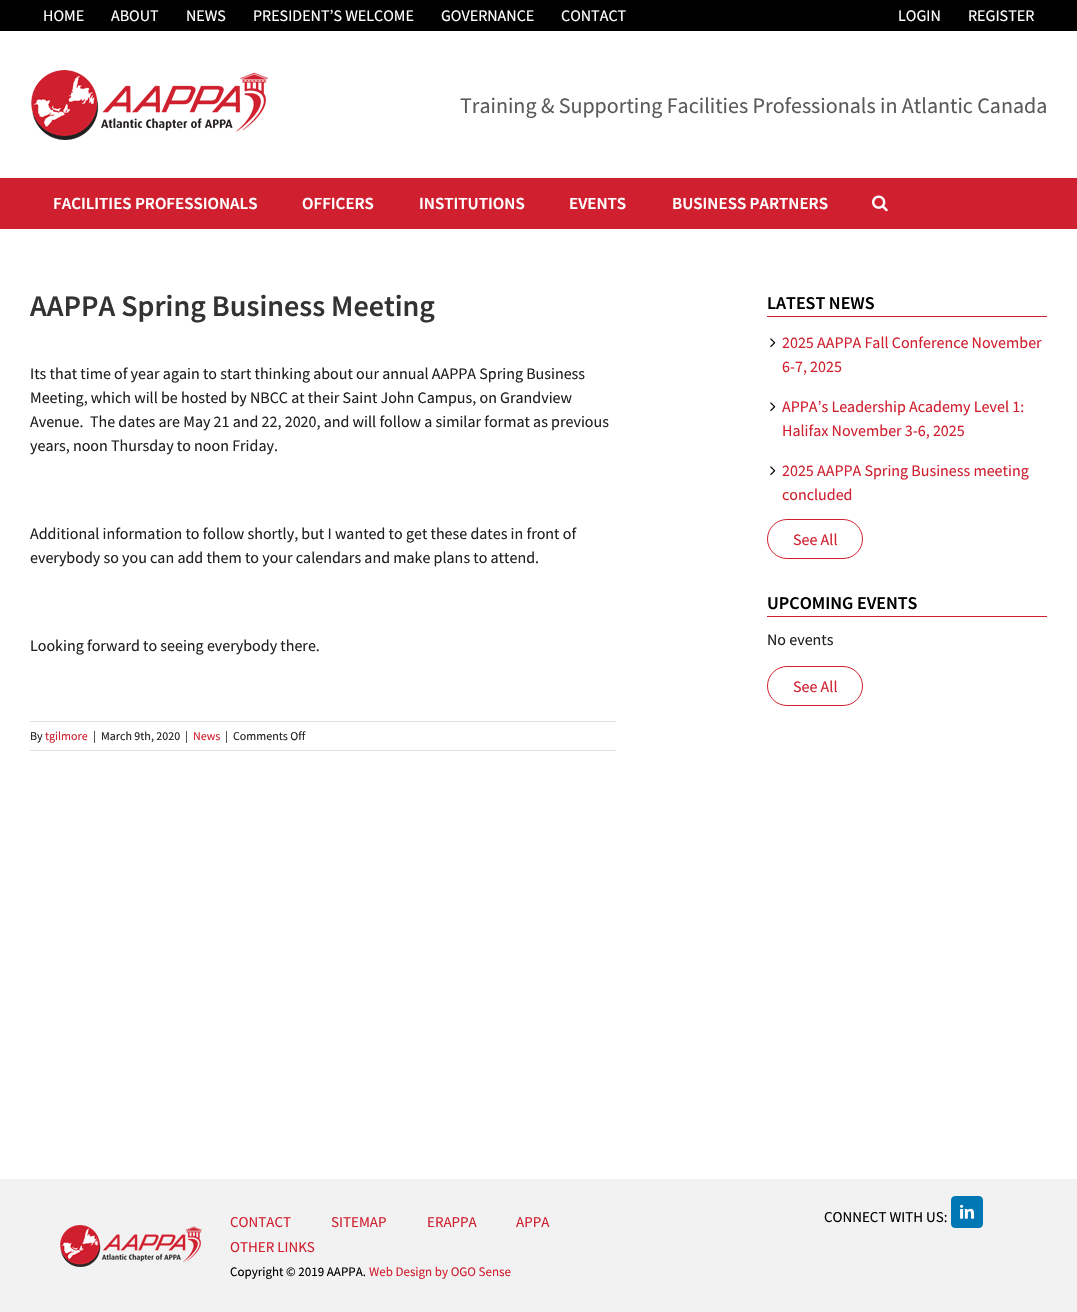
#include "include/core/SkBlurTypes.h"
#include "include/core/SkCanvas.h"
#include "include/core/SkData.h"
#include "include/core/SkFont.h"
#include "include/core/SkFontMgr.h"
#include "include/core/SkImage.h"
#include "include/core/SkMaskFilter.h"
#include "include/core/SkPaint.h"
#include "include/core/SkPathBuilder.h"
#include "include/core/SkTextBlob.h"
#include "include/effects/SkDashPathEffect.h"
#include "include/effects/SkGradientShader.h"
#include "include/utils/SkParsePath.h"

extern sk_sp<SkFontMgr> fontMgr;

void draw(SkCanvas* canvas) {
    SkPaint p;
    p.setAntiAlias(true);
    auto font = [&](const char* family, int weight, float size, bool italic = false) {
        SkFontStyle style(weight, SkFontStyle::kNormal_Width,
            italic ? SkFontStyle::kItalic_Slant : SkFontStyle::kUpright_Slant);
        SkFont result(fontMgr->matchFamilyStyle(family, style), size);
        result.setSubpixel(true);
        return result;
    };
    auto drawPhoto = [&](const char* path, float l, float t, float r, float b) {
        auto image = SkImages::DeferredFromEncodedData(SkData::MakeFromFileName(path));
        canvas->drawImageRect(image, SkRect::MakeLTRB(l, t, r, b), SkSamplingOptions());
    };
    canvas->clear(0xFFFFFFFF);
    p.setColor(0xFF000000);
    canvas->drawRect(SkRect::MakeLTRB(0, 0, 1077, 31), p);
    auto font1 = font("Source Sans Pro", 400, 16);
    p.setColor(0xFFFFFFFF);
    {
        const struct { const char* s; float x, y; } items[] = {
            {"HOME", 43, 21},
            {"ABOUT", 111, 21},
            {"NEWS", 186, 21},
            {"PRESIDENT’S WELCOME", 253, 21},
            {"GOVERNANCE", 441, 21},
            {"CONTACT", 561, 21},
            {"LOGIN", 898, 21},
            {"REGISTER", 968, 21},
        };
        for (auto [s, x, y] : items) {
            canvas->drawString(s, x, y, font1, p);
        }
    }
    drawPhoto("media/1.png", 31, 70, 268, 140);
    auto font2 = font("Source Sans Pro", 400, 22);
    p.setColor(0xFF5A5A5A);
    canvas->drawString("Training & Supporting Facilities Professionals in Atlantic Canada", 460, 113, font2, p);
    p.setColor(0xFFD0202F);
    canvas->drawRect(SkRect::MakeLTRB(0, 178, 1077, 229), p);
    auto font3 = font("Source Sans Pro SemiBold", 600, 17);
    p.setColor(0xFFFFFFFF);
    {
        const struct { const char* s; float x, y; } items[] = {
            {"FACILITIES PROFESSIONALS", 53, 209},
            {"OFFICERS", 302, 209},
            {"INSTITUTIONS", 419, 209},
            {"EVENTS", 569, 209},
            {"BUSINESS PARTNERS", 672, 209},
        };
        for (auto [s, x, y] : items) {
            canvas->drawString(s, x, y, font3, p);
        }
    }
    drawPhoto("media/2.png", 872, 195, 888, 212);
    auto font4 = font("Source Sans Pro SemiBold", 600, 30);
    p.setColor(0xFF333333);
    canvas->drawString("AAPPA Spring Business Meeting", 30, 316, font4, p);
    p.setColor(0xFF232020);
    {
        const struct { const char* s; float x, y; } items[] = {
            {"Its that time of year again to start thinking about our annual AAPPA Spring Business", 30, 379},
            {"Meeting, which will be hosted by NBCC at their Saint John Campus, on Grandview", 30, 403},
            {"Avenue.  The dates are May 21 and 22, 2020, and will follow a similar format as previous", 30, 427},
            {"years, noon Thursday to noon Friday.", 30, 451},
            {"Additional information to follow shortly, but I wanted to get these dates in front of", 30, 539},
            {"everybody so you can add them to your calendars and make plans to attend.", 30, 563},
            {"Looking forward to seeing everybody there.", 30, 651},
        };
        for (auto [s, x, y] : items) {
            canvas->drawString(s, x, y, font1, p);
        }
    }
    p.setColor(0xFFE0DEDE);
    canvas->drawRect(SkRect::MakeLTRB(30, 721, 616, 722), p);
    canvas->drawRect(SkRect::MakeLTRB(30, 750, 616, 751), p);
    auto font5 = font("Source Sans Pro", 400, 12);
    p.setColor(0xFF232020);
    canvas->drawString("By", 30, 740, font5, p);
    p.setColor(0xFFD0202F);
    canvas->drawString("tgilmore", 45, 740, font5, p);
    p.setColor(0xFF232020);
    {
        const struct { const char* s; float x, y; } items[] = {
            {"|", 93, 740},
            {"March 9th, 2020", 101, 740},
            {"|", 185, 740},
        };
        for (auto [s, x, y] : items) {
            canvas->drawString(s, x, y, font5, p);
        }
    }
    p.setColor(0xFFD0202F);
    canvas->drawString("News", 193, 740, font5, p);
    p.setColor(0xFF232020);
    canvas->drawString("|", 225, 740, font5, p);
    canvas->drawString("Comments Off", 233, 740, font5, p);
    p.setColor(0xFFD0202F);
    canvas->drawRect(SkRect::MakeLTRB(767, 316, 1047, 317), p);
    auto font6 = font("Source Sans Pro SemiBold", 600, 18);
    p.setColor(0xFF000000);
    canvas->drawString("LATEST NEWS", 767, 309, font6, p);
    drawPhoto("media/3.png", 770, 338, 776, 348);
    p.setColor(0xFFD0202F);
    canvas->drawString("2025 AAPPA Fall Conference November", 782, 348, font1, p);
    canvas->drawString("6-7, 2025", 782, 372, font1, p);
    drawPhoto("media/3.png", 770, 402, 776, 412);
    canvas->drawString("APPA’s Leadership Academy Level 1:", 782, 412, font1, p);
    canvas->drawString("Halifax November 3-6, 2025", 782, 436, font1, p);
    drawPhoto("media/3.png", 770, 466, 776, 476);
    canvas->drawString("2025 AAPPA Spring Business meeting", 782, 476, font1, p);
    canvas->drawString("concluded", 782, 500, font1, p);
    p.setStyle(SkPaint::kStroke_Style);
    p.setStrokeWidth(1);
    canvas->drawRoundRect(SkRect::MakeLTRB(767.5f, 519.5f, 862.5f, 558.5f), 19.5f, 19.5f, p);
    p.setStyle(SkPaint::kFill_Style);
    canvas->drawString("See All", 793, 545, font1, p);
    canvas->drawRect(SkRect::MakeLTRB(767, 616, 1047, 617), p);
    p.setColor(0xFF000000);
    canvas->drawString("UPCOMING EVENTS", 767, 609, font6, p);
    p.setColor(0xFF232020);
    canvas->drawString("No events", 767, 645, font1, p);
    p.setStyle(SkPaint::kStroke_Style);
    p.setColor(0xFFD0202F);
    canvas->drawRoundRect(SkRect::MakeLTRB(767.5f, 666.5f, 862.5f, 705.5f), 19.5f, 19.5f, p);
    p.setStyle(SkPaint::kFill_Style);
    canvas->drawString("See All", 793, 692, font1, p);
    p.setColor(0xFFF2F2F2);
    canvas->drawRect(SkRect::MakeLTRB(0, 1179, 1077, 1312), p);
    drawPhoto("media/4.png", 60, 1225, 202, 1267);
    auto font7 = font("Source Sans Pro", 400, 15);
    p.setColor(0xFFD0202F);
    {
        const struct { const char* s; float x, y; } items[] = {
            {"CONTACT", 230, 1227},
            {"SITEMAP", 331, 1227},
            {"ERAPPA", 427, 1227},
            {"APPA", 516, 1227},
            {"OTHER LINKS", 230, 1252},
        };
        for (auto [s, x, y] : items) {
            canvas->drawString(s, x, y, font7, p);
        }
    }
    auto font8 = font("Source Sans Pro", 400, 13);
    p.setColor(0xFF000000);
    canvas->drawString("Copyright © 2019 AAPPA.", 230, 1276, font8, p);
    p.setColor(0xFFD0202F);
    canvas->drawString("Web Design by OGO Sense", 369, 1276, font8, p);
    p.setColor(0xFF000000);
    canvas->drawString("CONNECT WITH US:", 824, 1222, font7, p);
    p.setColor(0xFF0077B5);
    canvas->drawRoundRect(SkRect::MakeLTRB(951.5f, 1196.5f, 982.5f, 1227.5f), 3.5f, 3.5f, p);
    p.setStyle(SkPaint::kStroke_Style);
    canvas->drawRoundRect(SkRect::MakeLTRB(951.5f, 1196.5f, 982.5f, 1227.5f), 3.5f, 3.5f, p);
    drawPhoto("media/5.png", 960, 1204, 974, 1219);
}
